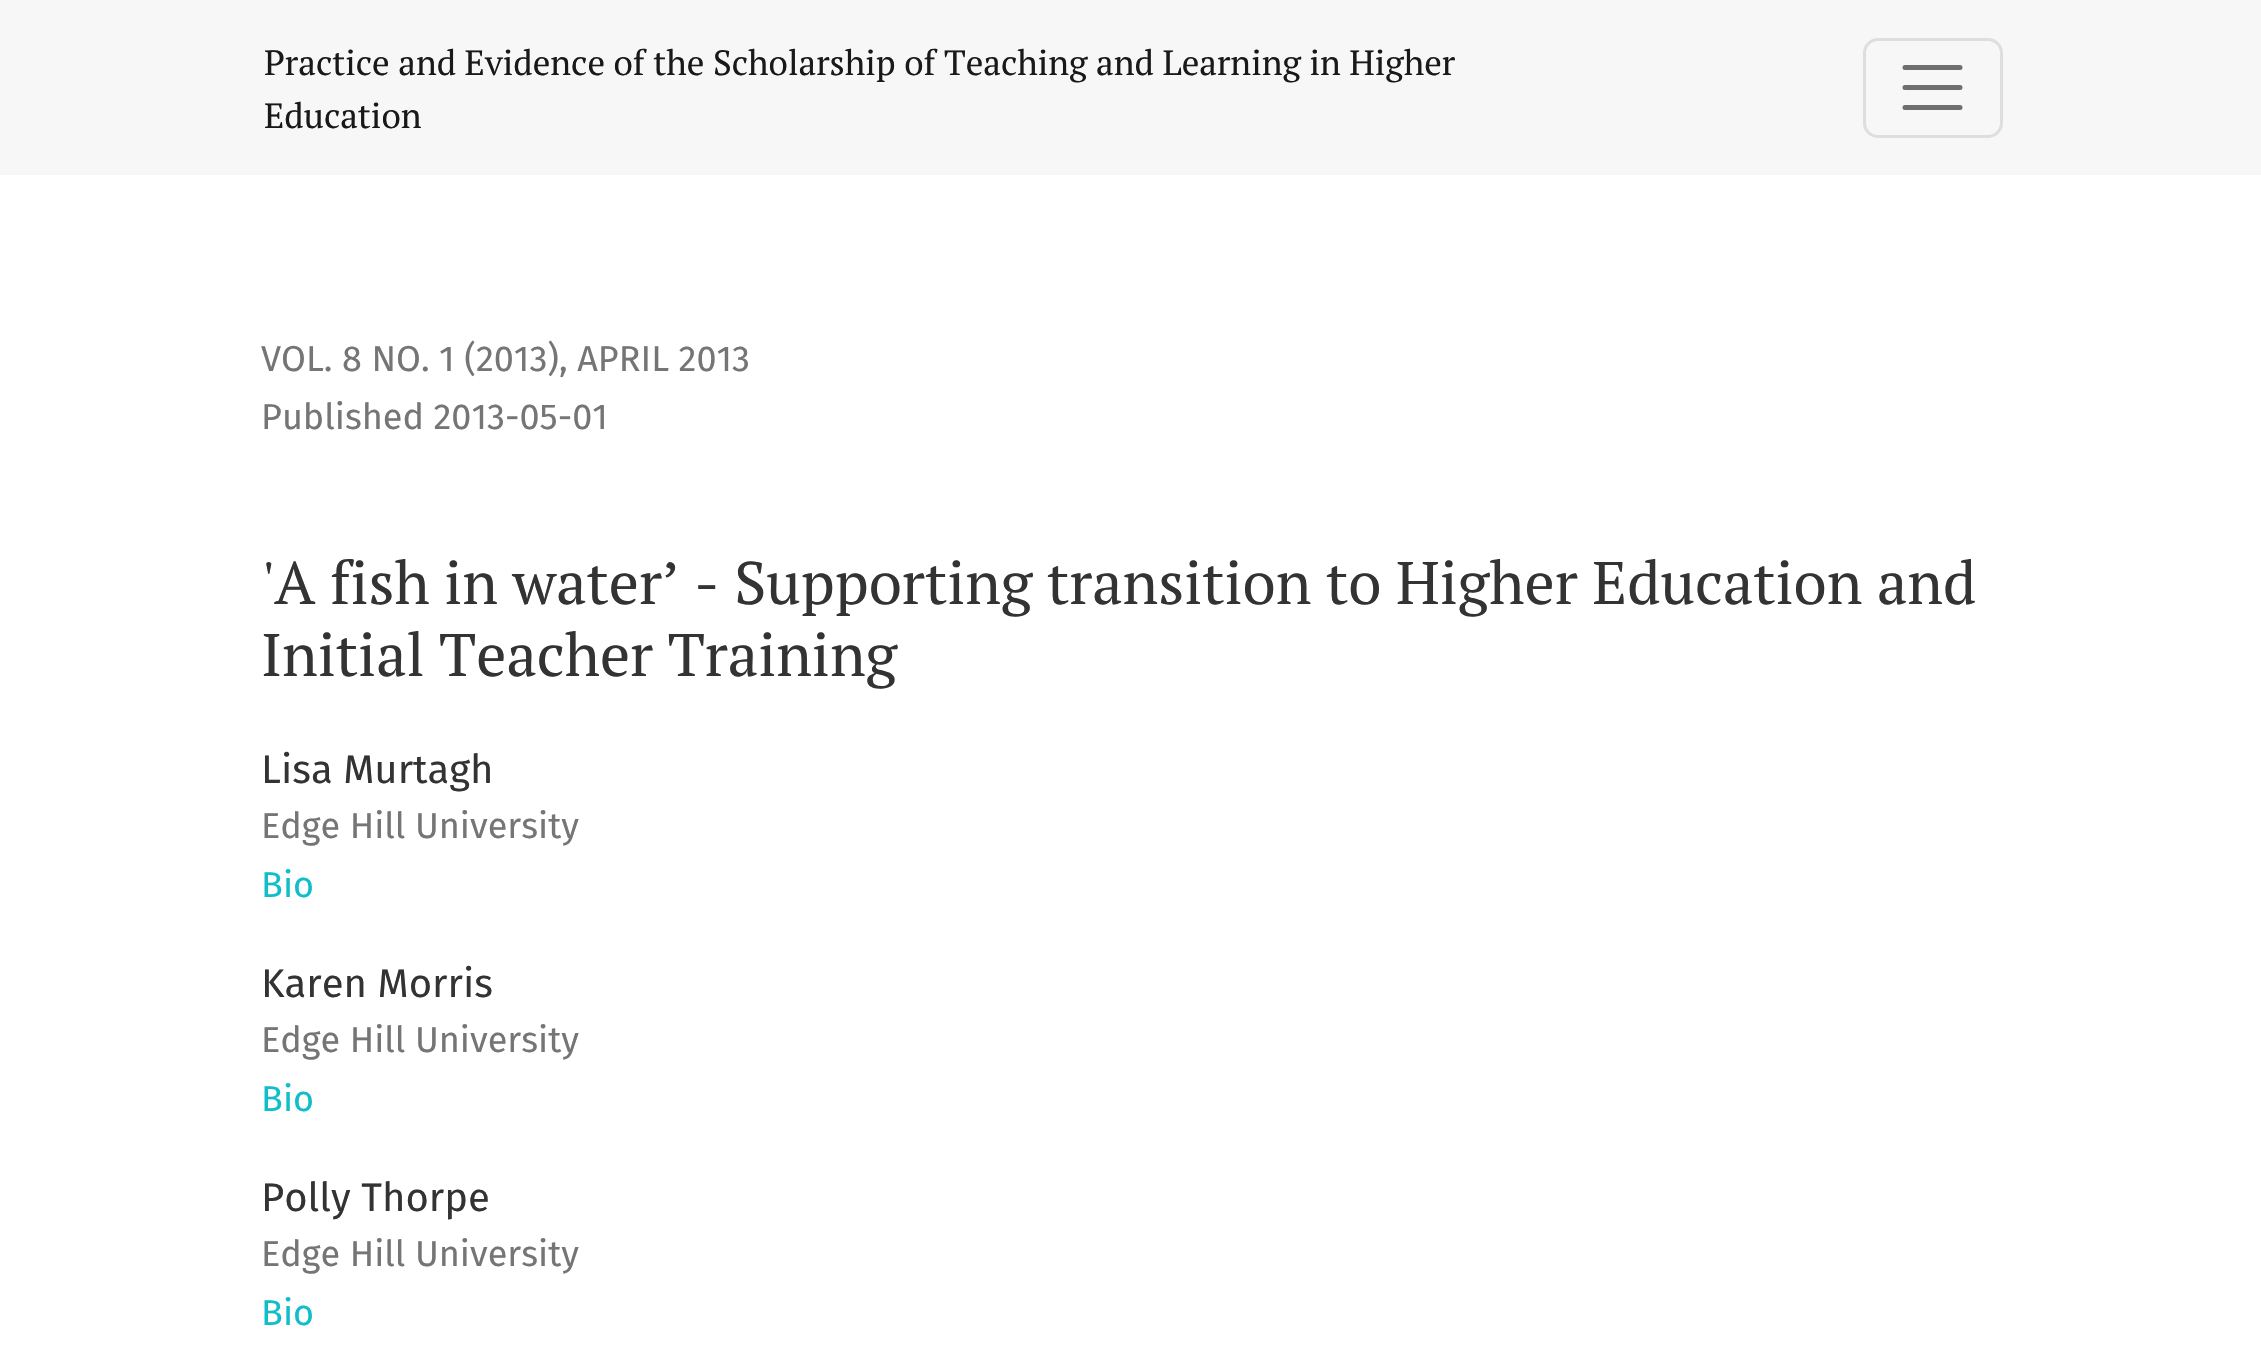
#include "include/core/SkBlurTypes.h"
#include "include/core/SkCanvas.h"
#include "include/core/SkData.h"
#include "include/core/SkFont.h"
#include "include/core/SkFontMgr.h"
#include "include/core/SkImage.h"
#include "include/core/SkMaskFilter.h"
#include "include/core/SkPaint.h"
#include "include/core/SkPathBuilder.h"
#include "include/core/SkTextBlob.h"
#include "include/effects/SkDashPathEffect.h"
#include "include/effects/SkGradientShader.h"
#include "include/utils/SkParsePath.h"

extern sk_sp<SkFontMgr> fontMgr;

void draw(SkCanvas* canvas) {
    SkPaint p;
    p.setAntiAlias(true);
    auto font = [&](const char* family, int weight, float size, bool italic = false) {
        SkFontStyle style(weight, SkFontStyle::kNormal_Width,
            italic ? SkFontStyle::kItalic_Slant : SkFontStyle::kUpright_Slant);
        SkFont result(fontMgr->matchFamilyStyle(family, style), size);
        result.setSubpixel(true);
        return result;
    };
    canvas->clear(0xFFFFFFFF);
    p.setColor(0xFFF7F7F7);
    canvas->drawRect(SkRect::MakeLTRB(0, 0, 2261, 175), p);
    auto font1 = font("PT Serif", 400, 35);
    p.setColor(0xFF191919);
    canvas->drawString("Practice and Evidence of the Scholarship of Teaching and Learning in Higher", 264, 75, font1, p);
    canvas->drawString("Education", 264, 128, font1, p);
    p.setStyle(SkPaint::kStroke_Style);
    p.setStrokeWidth(3);
    p.setColor(0xFFDEDEDE);
    canvas->drawRoundRect(SkRect::MakeLTRB(1864.5f, 39.5f, 2001.5f, 136.5f), 13.5f, 13.5f, p);
    p.setStrokeWidth(5);
    p.setStrokeCap(SkPaint::kRound_Cap);
    p.setColor(0xFF6F6F6F);
    canvas->drawPath(SkPathBuilder().moveTo(1905, 67.5f).lineTo(1960, 67.5f).moveTo(1905, 87.5f).lineTo(1960, 87.5f).moveTo(1905, 107.5f).lineTo(1960, 107.5f).detach(), p);
    auto font2 = font("Fira Sans", 400, 36);
    p.setStyle(SkPaint::kFill_Style);
    p.setColor(0xFF757575);
    canvas->drawString("VOL. 8 NO. 1 (2013), APRIL 2013", 261, 371, font2, p);
    canvas->drawString("Published 2013-05-01", 261, 429, font2, p);
    auto font3 = font("PT Serif", 400, 60);
    p.setColor(0xFF333333);
    canvas->drawString("'A fish in water’ - Supporting transition to Higher Education and", 261, 604, font3, p);
    canvas->drawString("Initial Teacher Training", 261, 676, font3, p);
    auto font4 = font("Fira Sans", 400, 40);
    canvas->drawString("Lisa Murtagh", 261, 783, font4, p);
    p.setColor(0xFF757575);
    canvas->drawString("Edge Hill University", 261, 838, font2, p);
    p.setColor(0xFF10BECA);
    canvas->drawString("Bio", 261, 897, font2, p);
    p.setColor(0xFF333333);
    canvas->drawString("Karen Morris", 261, 997, font4, p);
    p.setColor(0xFF757575);
    canvas->drawString("Edge Hill University", 261, 1052, font2, p);
    p.setColor(0xFF10BECA);
    canvas->drawString("Bio", 261, 1111, font2, p);
    p.setColor(0xFF333333);
    canvas->drawString("Polly Thorpe", 261, 1211, font4, p);
    p.setColor(0xFF757575);
    canvas->drawString("Edge Hill University", 261, 1266, font2, p);
    p.setColor(0xFF10BECA);
    canvas->drawString("Bio", 261, 1325, font2, p);
}
